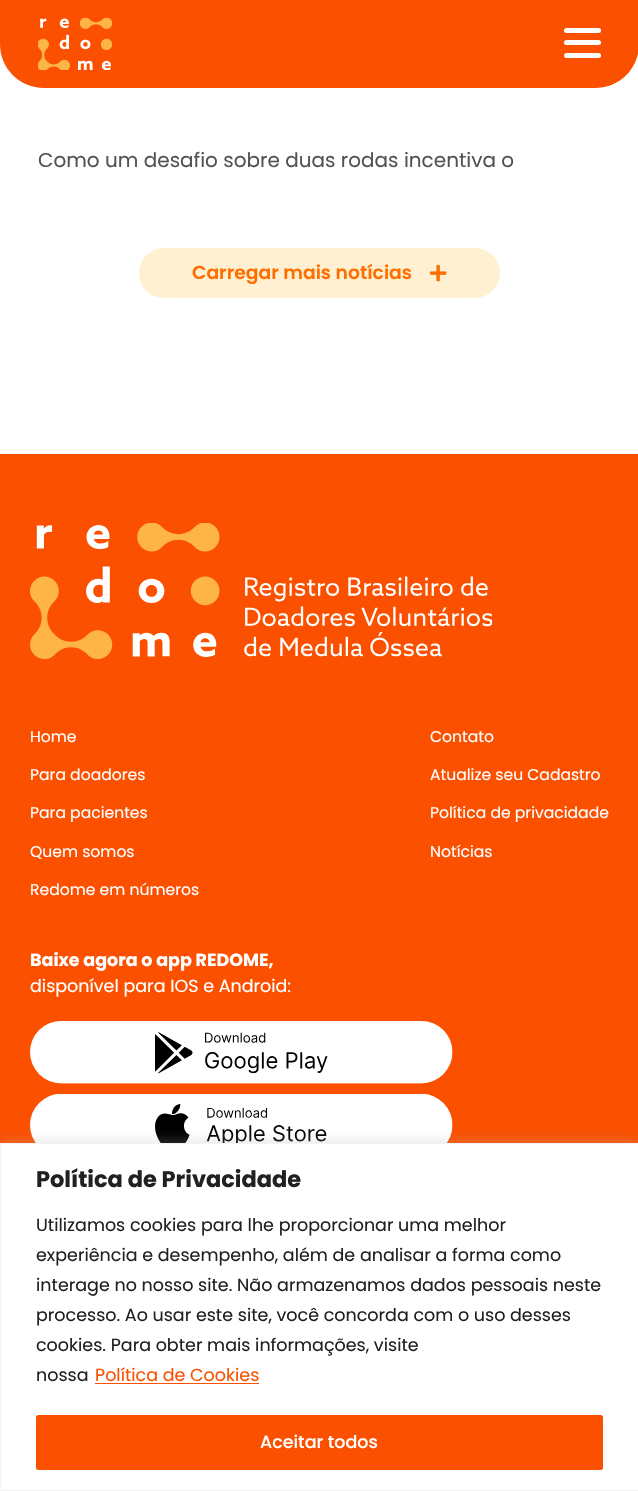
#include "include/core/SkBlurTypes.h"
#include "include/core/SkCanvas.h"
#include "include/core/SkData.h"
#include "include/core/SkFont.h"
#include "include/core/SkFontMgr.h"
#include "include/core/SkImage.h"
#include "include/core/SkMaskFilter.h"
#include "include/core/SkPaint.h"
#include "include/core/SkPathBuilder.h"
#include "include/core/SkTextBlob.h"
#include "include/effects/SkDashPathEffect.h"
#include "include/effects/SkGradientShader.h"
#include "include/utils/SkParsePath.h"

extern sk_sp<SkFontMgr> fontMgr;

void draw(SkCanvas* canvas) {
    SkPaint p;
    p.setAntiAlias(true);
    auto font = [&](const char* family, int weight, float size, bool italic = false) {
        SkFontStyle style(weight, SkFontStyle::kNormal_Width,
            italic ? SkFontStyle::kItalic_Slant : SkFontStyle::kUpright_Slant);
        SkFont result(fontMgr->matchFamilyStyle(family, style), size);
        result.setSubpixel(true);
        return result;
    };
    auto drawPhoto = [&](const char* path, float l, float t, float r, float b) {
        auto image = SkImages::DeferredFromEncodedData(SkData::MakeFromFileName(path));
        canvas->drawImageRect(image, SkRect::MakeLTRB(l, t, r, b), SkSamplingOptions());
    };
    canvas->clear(0xFFFFFFFF);
    p.setColor(0xFFFA5000);
    canvas->drawPath(SkPathBuilder().moveTo(0, 0).lineTo(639, 0).lineTo(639, 44).cubicTo(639, 68.5f, 619.5f, 88, 595, 88).lineTo(44, 88).cubicTo(19.5f, 88, 0, 68.5f, 0, 44).close().detach(), p);
    drawPhoto("media/1.png", 38, 18, 112, 70);
    p.setColor(0xFFFFFFFF);
    canvas->drawRoundRect(SkRect::MakeLTRB(564, 28, 601, 33), 2.5f, 2.5f, p);
    canvas->drawRoundRect(SkRect::MakeLTRB(564, 40, 601, 45), 2.5f, 2.5f, p);
    canvas->drawRoundRect(SkRect::MakeLTRB(564, 53, 601, 58), 2.5f, 2.5f, p);
    auto font1 = font("Poppins", 400, 20);
    p.setColor(0xFF535353);
    canvas->drawString("Como um desafio sobre duas rodas incentiva o", 38, 167, font1, p);
    p.setColor(0xFFFFF0D2);
    canvas->drawRoundRect(SkRect::MakeLTRB(139, 248, 500, 298), 25, 25, p);
    auto font2 = font("Poppins", 600, 18.75f);
    p.setColor(0xFFFF6E00);
    canvas->drawString("Carregar mais notícias", 192, 279, font2, p);
    drawPhoto("media/2.png", 429, 264, 447, 282);
    p.setColor(0xFFFA5000);
    canvas->drawRect(SkRect::MakeLTRB(0, 454, 638, 1143), p);
    drawPhoto("media/3.png", 30, 523, 493, 659);
    auto font3 = font("Poppins", 400, 15.6f);
    p.setColor(0xFFFFFFFF);
    {
        const struct { const char* s; float x, y; } items[] = {
            {"Home", 30, 742},
            {"Para doadores", 30, 780},
            {"Para pacientes", 30, 818},
            {"Quem somos", 30, 857},
            {"Redome em números", 30, 895},
            {"Contato", 430, 742},
            {"Atualize seu Cadastro", 430, 780},
            {"Política de privacidade", 430, 818},
            {"Notícias", 430, 857},
        };
        for (auto [s, x, y] : items) {
            canvas->drawString(s, x, y, font3, p);
        }
    }
    auto font4 = font("Poppins", 700, 17.5f);
    canvas->drawString("Baixe agora o app REDOME,", 30, 966, font4, p);
    auto font5 = font("Poppins", 400, 17.5f);
    canvas->drawString("disponível para IOS e Android:", 30, 992, font5, p);
    drawPhoto("media/4.png", 30, 1021, 453, 1084);
    drawPhoto("media/5.png", 30, 1094, 453, 1143);
    p.setColor(0x4DACABAB);
    p.setMaskFilter(SkMaskFilter::MakeBlur(kNormal_SkBlurStyle, 6));
    canvas->drawRect(SkRect::MakeLTRB(0, 1141, 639, 1490), p);
    p.setMaskFilter(nullptr);
    p.setColor(0xFFFFFFFF);
    canvas->drawRect(SkRect::MakeLTRB(0.5f, 1143.5f, 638.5f, 1490.5f), p);
    p.setStyle(SkPaint::kStroke_Style);
    p.setStrokeWidth(1);
    p.setColor(0xFFF4F4F4);
    canvas->drawRect(SkRect::MakeLTRB(0.5f, 1143.5f, 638.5f, 1490.5f), p);
    auto font6 = font("Poppins", 700, 22.5f);
    p.setStyle(SkPaint::kFill_Style);
    p.setColor(0xFF212121);
    canvas->drawString("Política de Privacidade", 36, 1187, font6, p);
    {
        const struct { const char* s; float x, y; } items[] = {
            {"Utilizamos cookies para lhe proporcionar uma melhor", 36, 1231},
            {"experiência e desempenho, além de analisar a forma como", 36, 1261},
            {"interage no nosso site. Não armazenamos dados pessoais neste", 36, 1291},
            {"processo. Ao usar este site, você concorda com o uso desses", 36, 1321},
            {"cookies. Para obter mais informações, visite", 36, 1351},
            {"nossa", 36, 1381},
        };
        for (auto [s, x, y] : items) {
            canvas->drawString(s, x, y, font5, p);
        }
    }
    p.setColor(0xFFFA5000);
    canvas->drawString("Política de Cookies", 95, 1381, font5, p);
    canvas->drawRect(SkRect::MakeLTRB(95, 1383, 259, 1384), p);
    canvas->drawRoundRect(SkRect::MakeLTRB(37.5f, 1416.5f, 601.5f, 1468.5f), 1, 1, p);
    p.setStyle(SkPaint::kStroke_Style);
    p.setStrokeWidth(3);
    canvas->drawRoundRect(SkRect::MakeLTRB(37.5f, 1416.5f, 601.5f, 1468.5f), 1, 1, p);
    auto font7 = font("Poppins", 500, 17.5f);
    p.setStyle(SkPaint::kFill_Style);
    p.setColor(0xFFFFFFFF);
    canvas->drawString("Aceitar todos", 260, 1448, font7, p);
}
